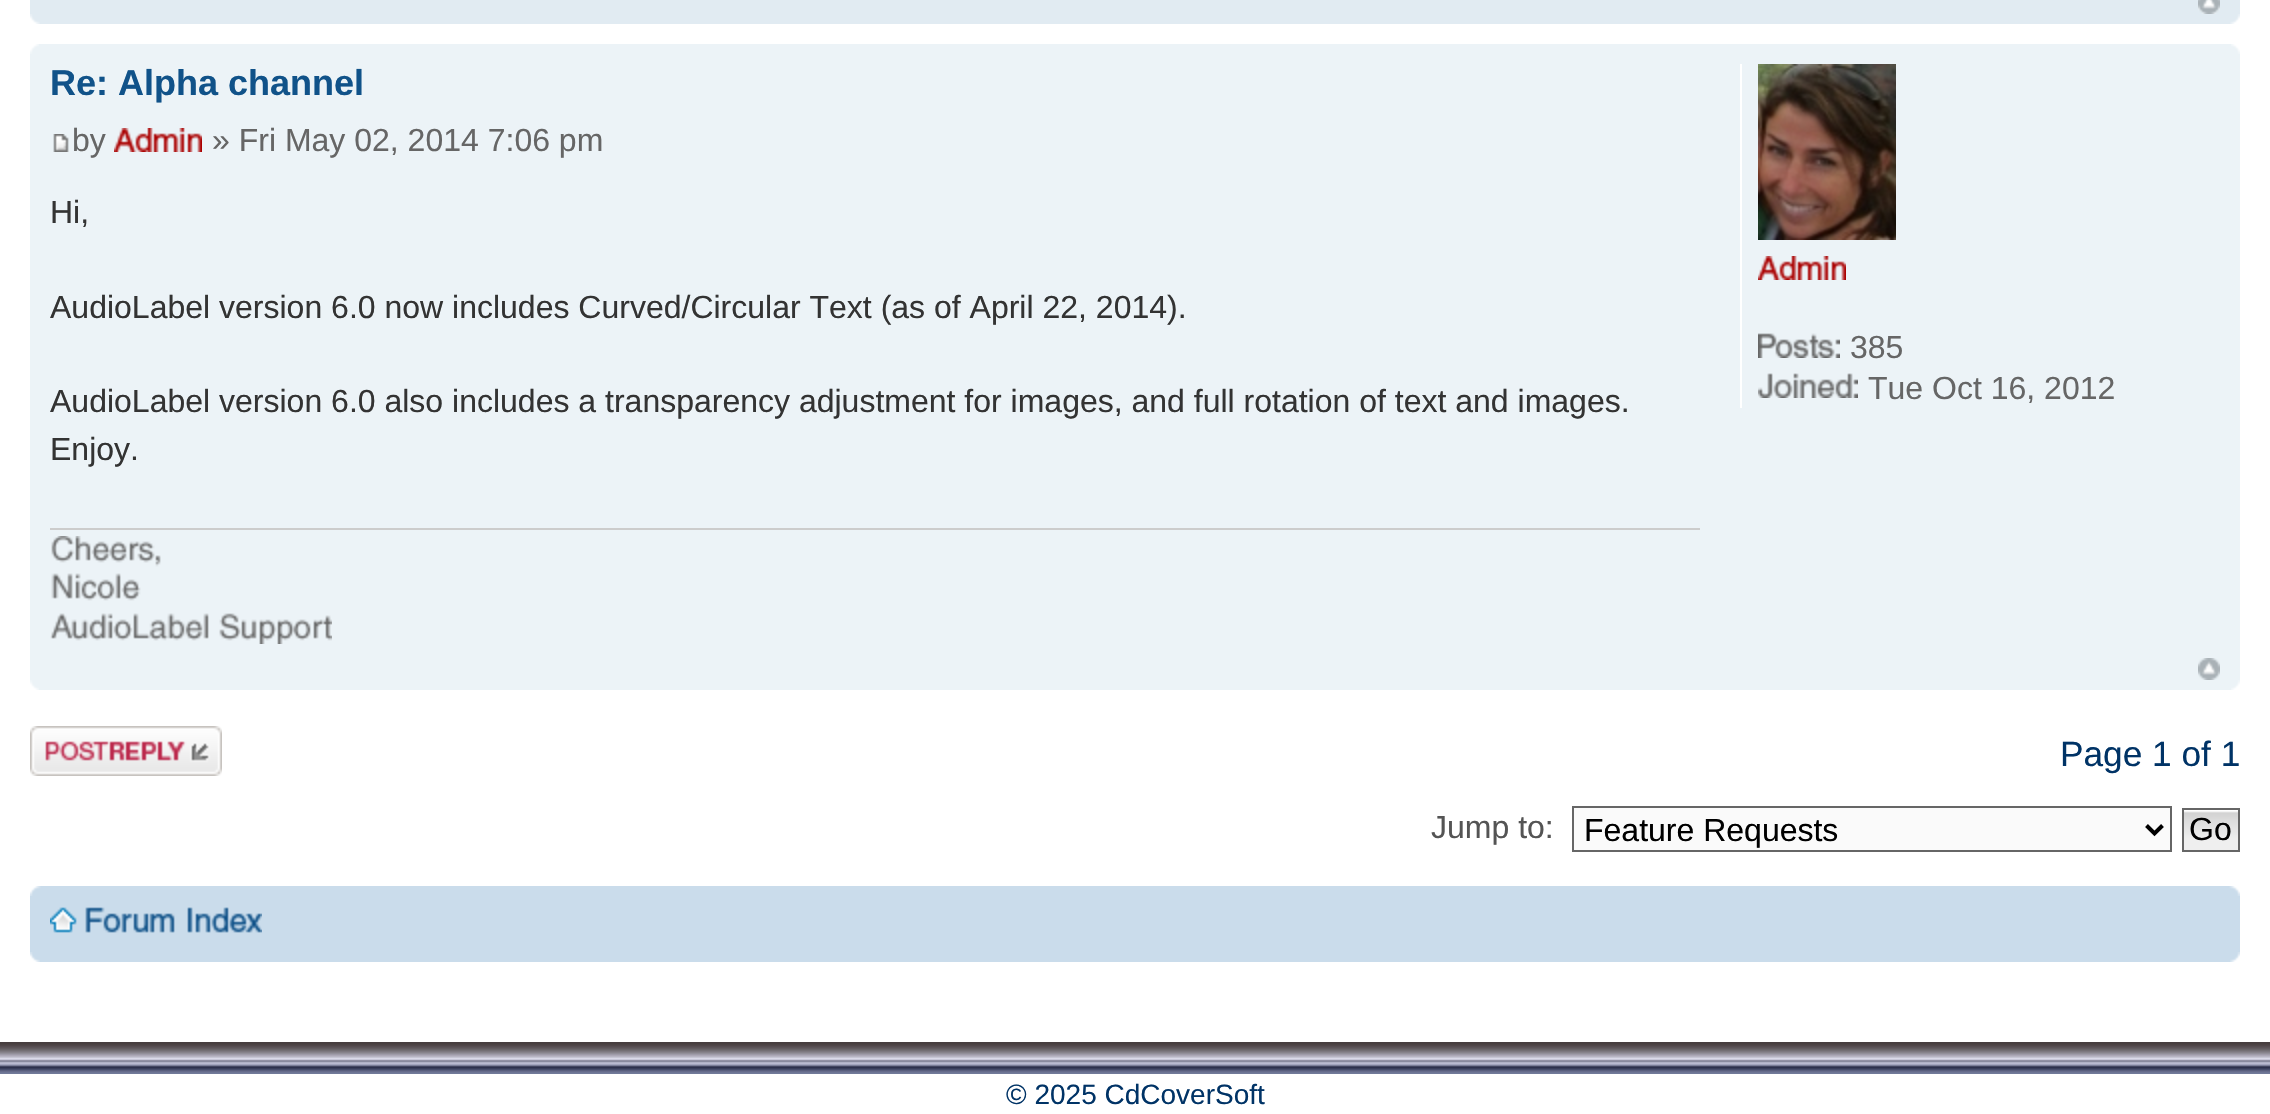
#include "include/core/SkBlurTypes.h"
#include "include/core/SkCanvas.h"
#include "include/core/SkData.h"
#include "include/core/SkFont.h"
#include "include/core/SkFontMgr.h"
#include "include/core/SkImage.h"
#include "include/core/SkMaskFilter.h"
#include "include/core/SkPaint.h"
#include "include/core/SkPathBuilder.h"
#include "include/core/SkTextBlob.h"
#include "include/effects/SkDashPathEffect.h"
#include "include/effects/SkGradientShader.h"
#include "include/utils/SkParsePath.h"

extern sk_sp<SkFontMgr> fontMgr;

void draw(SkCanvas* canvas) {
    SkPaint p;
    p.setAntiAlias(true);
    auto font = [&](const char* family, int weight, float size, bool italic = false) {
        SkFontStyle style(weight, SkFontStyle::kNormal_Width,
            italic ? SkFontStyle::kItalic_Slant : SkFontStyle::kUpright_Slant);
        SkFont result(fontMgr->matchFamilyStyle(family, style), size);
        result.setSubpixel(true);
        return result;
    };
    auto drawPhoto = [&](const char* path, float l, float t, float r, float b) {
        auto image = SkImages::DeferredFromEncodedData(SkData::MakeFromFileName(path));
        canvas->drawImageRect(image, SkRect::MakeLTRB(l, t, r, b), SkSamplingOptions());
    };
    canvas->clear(0xFFFFFFFF);
    p.setColor(0xFFE1EBF2);
    canvas->drawRect(SkRect::MakeLTRB(30, 0, 2240, 24), p);
    drawPhoto("media/1.png", 2198, 0, 2220, 14);
    drawPhoto("media/2.png", 30, 14, 40, 24);
    drawPhoto("media/3.png", 2230, 14, 2240, 24);
    p.setColor(0xFFECF3F7);
    canvas->drawRect(SkRect::MakeLTRB(30, 44, 2240, 690), p);
    drawPhoto("media/4.png", 30, 44, 39, 54);
    drawPhoto("media/5.png", 2231, 44, 2240, 54);
    auto font1 = font("Liberation Sans", 700, 36);
    p.setColor(0xFF105289);
    canvas->drawString("Re: Alpha channel", 50, 95, font1, p);
    drawPhoto("media/6.png", 53, 134, 69, 152);
    auto font2 = font("Liberation Sans", 400, 32);
    p.setColor(0xFF666666);
    canvas->drawString("by", 72, 151, font2, p);
    drawPhoto("media/7.png", 114, 128, 202, 152);
    canvas->drawString("» Fri May 02, 2014 7:06 pm", 212, 151, font2, p);
    p.setColor(0xFF333333);
    {
        const struct { const char* s; float x, y; } items[] = {
            {"Hi,", 50, 223},
            {"AudioLabel version 6.0 now includes Curved/Circular Text (as of April 22, 2014).", 50, 318},
            {"AudioLabel version 6.0 also includes a transparency adjustment for images, and full rotation of text and images.", 50, 412},
            {"Enjoy.", 50, 460},
        };
        for (auto [s, x, y] : items) {
            canvas->drawString(s, x, y, font2, p);
        }
    }
    p.setColor(0xFFCCCCCC);
    canvas->drawRect(SkRect::MakeLTRB(50, 528, 1700, 530), p);
    drawPhoto("media/8.png", 50, 536, 332, 644);
    p.setColor(0xFFFFFFFF);
    canvas->drawRect(SkRect::MakeLTRB(1740, 64, 1742, 408), p);
    drawPhoto("media/9.png", 1758, 64, 1896, 240);
    drawPhoto("media/7.png", 1758, 256, 1846, 280);
    drawPhoto("media/10.png", 1758, 333, 1840, 358);
    p.setColor(0xFF666666);
    canvas->drawString("385", 1850, 358, font2, p);
    drawPhoto("media/11.png", 1758, 373, 1858, 398);
    canvas->drawString("Tue Oct 16, 2012", 1868, 399, font2, p);
    drawPhoto("media/12.png", 2198, 658, 2220, 680);
    drawPhoto("media/13.png", 30, 680, 39, 690);
    drawPhoto("media/14.png", 2231, 680, 2240, 690);
    drawPhoto("media/15.png", 30, 726, 222, 776);
    auto font3 = font("Liberation Sans", 400, 35.25f);
    p.setColor(0xFF003366);
    canvas->drawString("Page 1 of 1", 2060, 766, font3, p);
    p.setColor(0xFF545454);
    canvas->drawString("Jump to:", 1431, 838, font2, p);
    p.setColor(0xFFFAFAFA);
    canvas->drawRect(SkRect::MakeLTRB(1573, 807, 2171, 851), p);
    p.setStyle(SkPaint::kStroke_Style);
    p.setStrokeWidth(2);
    p.setColor(0xFF666666);
    canvas->drawRect(SkRect::MakeLTRB(1573, 807, 2171, 851), p);
    p.setStrokeWidth(4);
    p.setColor(0xFF000000);
    canvas->drawPath(SkPathBuilder().moveTo(2146.5f, 825.5f).lineTo(2154.5f, 833.5f).lineTo(2162.5f, 825.5f).detach(), p);
    p.setStyle(SkPaint::kFill_Style);
    canvas->drawString("Feature Requests", 1584, 841, font2, p);
    drawPhoto("media/16.png", 2184, 810, 2238, 850);
    p.setStyle(SkPaint::kStroke_Style);
    p.setStrokeWidth(2);
    p.setColor(0xFF666666);
    canvas->drawRect(SkRect::MakeLTRB(2183, 809, 2239, 851), p);
    p.setStyle(SkPaint::kFill_Style);
    p.setColor(0xFF000000);
    canvas->drawString("Go", 2189, 840, font2, p);
    p.setColor(0xFFCADCEB);
    canvas->drawRect(SkRect::MakeLTRB(30, 886, 2240, 962), p);
    drawPhoto("media/17.png", 30, 886, 41, 896);
    drawPhoto("media/18.png", 2229, 886, 2240, 896);
    drawPhoto("media/19.png", 50, 907, 262, 933);
    drawPhoto("media/20.png", 30, 952, 40, 962);
    drawPhoto("media/21.png", 2230, 952, 2240, 962);
    drawPhoto("media/22.png", 0, 1042, 2270, 1074);
    auto font4 = font("Liberation Sans", 400, 28);
    p.setColor(0xFF003366);
    canvas->drawString("© 2025 CdCoverSoft", 1006, 1104, font4, p);
}
